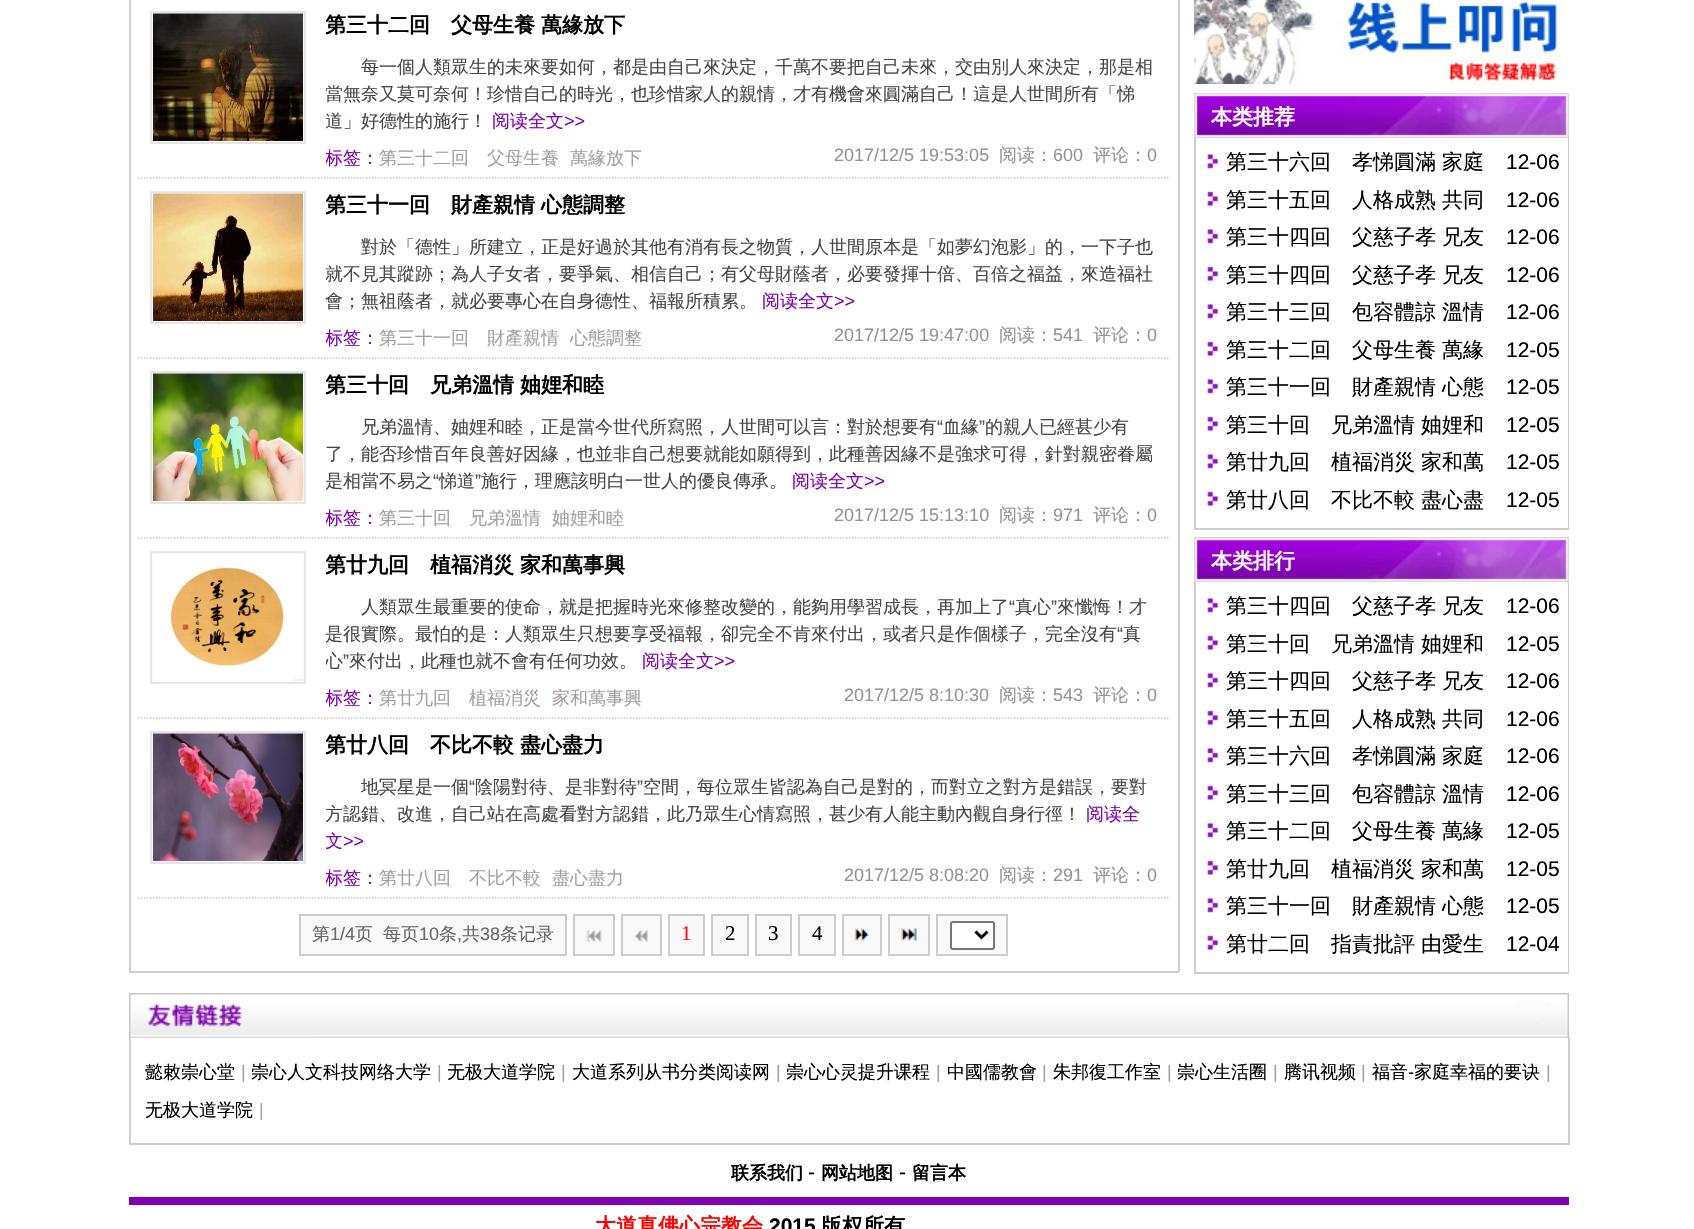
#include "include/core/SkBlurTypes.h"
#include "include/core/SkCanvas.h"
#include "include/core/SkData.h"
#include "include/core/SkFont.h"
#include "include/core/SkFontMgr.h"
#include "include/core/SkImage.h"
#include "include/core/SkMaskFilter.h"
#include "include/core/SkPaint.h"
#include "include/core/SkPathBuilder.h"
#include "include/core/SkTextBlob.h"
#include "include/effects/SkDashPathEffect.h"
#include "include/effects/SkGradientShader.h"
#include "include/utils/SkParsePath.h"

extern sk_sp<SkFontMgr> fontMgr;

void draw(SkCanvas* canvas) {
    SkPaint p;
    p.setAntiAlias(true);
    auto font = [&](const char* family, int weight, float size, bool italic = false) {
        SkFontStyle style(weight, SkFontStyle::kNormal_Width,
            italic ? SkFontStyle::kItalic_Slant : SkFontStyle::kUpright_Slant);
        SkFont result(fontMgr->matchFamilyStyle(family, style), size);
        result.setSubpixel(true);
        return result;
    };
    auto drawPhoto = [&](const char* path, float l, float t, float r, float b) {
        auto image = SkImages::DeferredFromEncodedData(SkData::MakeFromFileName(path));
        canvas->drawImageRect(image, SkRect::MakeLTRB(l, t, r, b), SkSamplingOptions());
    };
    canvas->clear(0xFFFFFFFF);
    {
        const struct { float l, t, r, b; SkColor color; } items[] = {
            {1178, 0, 1180, 972, 0xFFCECECE},
            {129, 971, 1179, 973, 0xFFCECECE},
            {129, 0, 131, 972, 0xFFCECECE},
        };
        for (auto [l, t, r, b, color] : items) {
            p.setColor(color);
            canvas->drawRect(SkRect::MakeLTRB(l, t, r, b), p);
        }
    }
    p.setStyle(SkPaint::kStroke_Style);
    p.setStrokeWidth(1.5f);
    p.setColor(0xFFCCCCCC);
    p.setPathEffect(SkDashPathEffect::Make({{1.5f, 1.5f}}, 0));
    canvas->drawPath(SkPathBuilder().moveTo(138, 178).lineTo(1170, 178).detach(), p);
    p.setPathEffect(nullptr);
    p.setStyle(SkPaint::kFill_Style);
    p.setColor(0xFFFAFAFA);
    canvas->drawRect(SkRect::MakeLTRB(151, 12, 305, 143), p);
    p.setStyle(SkPaint::kStroke_Style);
    p.setStrokeWidth(2);
    p.setColor(0xFFE6E5E5);
    canvas->drawRect(SkRect::MakeLTRB(151, 12, 305, 143), p);
    drawPhoto("media/1.png", 153, 13, 303, 141);
    canvas->save();
    canvas->clipRect(SkRect::MakeLTRB(326, 11, 1158, 174));
    auto font1 = font("WenQuanYi Zen Hei", 700, 21);
    p.setStyle(SkPaint::kFill_Style);
    p.setColor(0xFF000000);
    canvas->drawString("第三十二回　父母生養", 325, 32, font1, p);
    canvas->restore();
    canvas->drawString("萬緣放下", 541, 32, font1, p);
    auto font2 = font("WenQuanYi Zen Hei", 500, 18);
    p.setColor(0xFF484748);
    canvas->drawString("每一個人類眾生的未來要如何，都是由自己來決定，千萬不要把自己未來，交由別人來決定，那是相", 361, 73, font2, p);
    canvas->save();
    canvas->clipRect(SkRect::MakeLTRB(326, 11, 1158, 174));
    canvas->drawString("當無奈又莫可奈何！珍惜自己的時光，也珍惜家人的親情，才有機會來圓滿自己！這是人世間所有「悌", 325, 100, font2, p);
    canvas->drawString("道」好德性的施行！", 325, 127, font2, p);
    canvas->restore();
    p.setColor(0xFF8001B2);
    canvas->drawString("阅读全文", 492, 127, font2, p);
    auto font3 = font("Liberation Sans", 400, 18);
    canvas->drawString(">>", 564, 127, font3, p);
    canvas->save();
    canvas->clipRect(SkRect::MakeLTRB(326, 11, 1158, 174));
    canvas->drawString("标签：", 325, 164, font2, p);
    canvas->restore();
    p.setColor(0xFFA59EA3);
    canvas->drawString("第三十二回　父母生養", 379, 164, font2, p);
    canvas->drawString("萬緣放下", 570, 164, font2, p);
    p.setColor(0xFF959495);
    canvas->drawString("2017/12/5 19:53:05", 834, 161, font3, p);
    canvas->drawString("阅读：", 999, 161, font2, p);
    canvas->drawString("600", 1053, 161, font3, p);
    canvas->drawString("评论：", 1093, 161, font2, p);
    canvas->drawString("0", 1147, 161, font3, p);
    p.setStyle(SkPaint::kStroke_Style);
    p.setStrokeWidth(1.5f);
    p.setColor(0xFFCCCCCC);
    p.setPathEffect(SkDashPathEffect::Make({{1.5f, 1.5f}}, 0));
    canvas->drawPath(SkPathBuilder().moveTo(138, 358).lineTo(1170, 358).detach(), p);
    p.setPathEffect(nullptr);
    p.setStyle(SkPaint::kFill_Style);
    p.setColor(0xFFFAFAFA);
    canvas->drawRect(SkRect::MakeLTRB(151, 192, 305, 323), p);
    p.setStyle(SkPaint::kStroke_Style);
    p.setStrokeWidth(2);
    p.setColor(0xFFE6E5E5);
    canvas->drawRect(SkRect::MakeLTRB(151, 192, 305, 323), p);
    drawPhoto("media/2.png", 153, 193, 303, 321);
    canvas->save();
    canvas->clipRect(SkRect::MakeLTRB(326, 191, 1158, 354));
    p.setStyle(SkPaint::kFill_Style);
    p.setColor(0xFF000000);
    canvas->drawString("第三十一回　財產親情", 325, 212, font1, p);
    canvas->restore();
    canvas->drawString("心態調整", 541, 212, font1, p);
    p.setColor(0xFF484748);
    canvas->drawString("對於「德性」所建立，正是好過於其他有消有長之物質，人世間原本是「如夢幻泡影」的，一下子也", 361, 253, font2, p);
    canvas->save();
    canvas->clipRect(SkRect::MakeLTRB(326, 191, 1158, 354));
    canvas->drawString("就不見其蹤跡；為人子女者，要爭氣、相信自己；有父母財蔭者，必要發揮十倍、百倍之福益，來造福社", 325, 280, font2, p);
    canvas->restore();
    canvas->drawString("會；無祖蔭者，就必要專心在自身德性、福報所積累。", 325, 307, font2, p);
    p.setColor(0xFF8001B2);
    canvas->drawString("阅读全文", 762, 307, font2, p);
    canvas->drawString(">>", 834, 307, font3, p);
    canvas->save();
    canvas->clipRect(SkRect::MakeLTRB(326, 191, 1158, 354));
    canvas->drawString("标签：", 325, 344, font2, p);
    canvas->restore();
    p.setColor(0xFFA59EA3);
    canvas->drawString("第三十一回　財產親情", 379, 344, font2, p);
    canvas->drawString("心態調整", 570, 344, font2, p);
    p.setColor(0xFF959495);
    canvas->drawString("2017/12/5 19:47:00", 834, 341, font3, p);
    canvas->drawString("阅读：", 999, 341, font2, p);
    canvas->drawString("541", 1053, 341, font3, p);
    canvas->drawString("评论：", 1093, 341, font2, p);
    canvas->drawString("0", 1147, 341, font3, p);
    p.setStyle(SkPaint::kStroke_Style);
    p.setStrokeWidth(1.5f);
    p.setColor(0xFFCCCCCC);
    p.setPathEffect(SkDashPathEffect::Make({{1.5f, 1.5f}}, 0));
    canvas->drawPath(SkPathBuilder().moveTo(138, 538).lineTo(1170, 538).detach(), p);
    p.setPathEffect(nullptr);
    p.setStyle(SkPaint::kFill_Style);
    p.setColor(0xFFFAFAFA);
    canvas->drawRect(SkRect::MakeLTRB(151, 372, 305, 503), p);
    p.setStyle(SkPaint::kStroke_Style);
    p.setStrokeWidth(2);
    p.setColor(0xFFE6E5E5);
    canvas->drawRect(SkRect::MakeLTRB(151, 372, 305, 503), p);
    drawPhoto("media/3.png", 153, 373, 303, 501);
    canvas->save();
    canvas->clipRect(SkRect::MakeLTRB(326, 371, 1158, 534));
    p.setStyle(SkPaint::kFill_Style);
    p.setColor(0xFF000000);
    canvas->drawString("第三十回　兄弟溫情", 325, 392, font1, p);
    canvas->restore();
    canvas->drawString("妯娌和睦", 520, 392, font1, p);
    p.setColor(0xFF484748);
    canvas->drawString("兄弟溫情、妯娌和睦，正是當今世代所寫照，人世間可以言：對於想要有", 361, 433, font2, p);
    canvas->drawString("“", 937, 433, font3, p);
    canvas->drawString("血緣", 943, 433, font2, p);
    canvas->drawString("”", 979, 433, font3, p);
    canvas->drawString("的親人已經甚少有", 985, 433, font2, p);
    canvas->drawString("了，能否珍惜百年良善好因緣，也並非自己想要就能如願得到，此種善因緣不是強求可得，針對親密眷屬", 325, 460, font2, p);
    canvas->save();
    canvas->clipRect(SkRect::MakeLTRB(326, 371, 1158, 534));
    canvas->drawString("是相當不易之", 325, 487, font2, p);
    canvas->restore();
    canvas->drawString("“", 433, 487, font3, p);
    canvas->drawString("悌道", 439, 487, font2, p);
    canvas->drawString("”", 475, 487, font3, p);
    canvas->drawString("施行，理應該明白一世人的優良傳承。", 481, 487, font2, p);
    p.setColor(0xFF8001B2);
    canvas->drawString("阅读全文", 792, 487, font2, p);
    canvas->drawString(">>", 864, 487, font3, p);
    canvas->save();
    canvas->clipRect(SkRect::MakeLTRB(326, 371, 1158, 534));
    canvas->drawString("标签：", 325, 524, font2, p);
    canvas->restore();
    p.setColor(0xFFA59EA3);
    canvas->drawString("第三十回　兄弟溫情", 379, 524, font2, p);
    canvas->drawString("妯娌和睦", 552, 524, font2, p);
    p.setColor(0xFF959495);
    canvas->drawString("2017/12/5 15:13:10", 834, 521, font3, p);
    canvas->drawString("阅读：", 999, 521, font2, p);
    canvas->drawString("971", 1053, 521, font3, p);
    canvas->drawString("评论：", 1093, 521, font2, p);
    canvas->drawString("0", 1147, 521, font3, p);
    p.setStyle(SkPaint::kStroke_Style);
    p.setStrokeWidth(1.5f);
    p.setColor(0xFFCCCCCC);
    p.setPathEffect(SkDashPathEffect::Make({{1.5f, 1.5f}}, 0));
    canvas->drawPath(SkPathBuilder().moveTo(138, 718).lineTo(1170, 718).detach(), p);
    p.setPathEffect(nullptr);
    p.setStyle(SkPaint::kFill_Style);
    p.setColor(0xFFFAFAFA);
    canvas->drawRect(SkRect::MakeLTRB(151, 552, 305, 683), p);
    p.setStyle(SkPaint::kStroke_Style);
    p.setStrokeWidth(2);
    p.setColor(0xFFE6E5E5);
    canvas->drawRect(SkRect::MakeLTRB(151, 552, 305, 683), p);
    drawPhoto("media/4.png", 153, 554, 303, 681);
    canvas->save();
    canvas->clipRect(SkRect::MakeLTRB(326, 551, 1158, 714));
    p.setStyle(SkPaint::kFill_Style);
    p.setColor(0xFF000000);
    canvas->drawString("第廿九回　植福消災", 325, 572, font1, p);
    canvas->restore();
    canvas->drawString("家和萬事興", 520, 572, font1, p);
    p.setColor(0xFF484748);
    canvas->drawString("人類眾生最重要的使命，就是把握時光來修整改變的，能夠用學習成長，再加上了", 361, 613, font2, p);
    canvas->drawString("“", 1009, 613, font3, p);
    canvas->drawString("真心", 1015, 613, font2, p);
    canvas->drawString("”", 1051, 613, font3, p);
    canvas->drawString("來懺悔！才", 1057, 613, font2, p);
    canvas->save();
    canvas->clipRect(SkRect::MakeLTRB(326, 551, 1158, 714));
    canvas->drawString("是很實際。最怕的是：人類眾生只想要享受福報，卻完全不肯來付出，或者只是作個樣子，完全沒有", 325, 640, font2, p);
    canvas->restore();
    canvas->drawString("“", 1117, 640, font3, p);
    canvas->drawString("真", 1123, 640, font2, p);
    canvas->save();
    canvas->clipRect(SkRect::MakeLTRB(326, 551, 1158, 714));
    canvas->drawString("心", 325, 667, font2, p);
    canvas->restore();
    canvas->drawString("”", 343, 667, font3, p);
    canvas->drawString("來付出，此種也就不會有任何功效。", 349, 667, font2, p);
    p.setColor(0xFF8001B2);
    canvas->drawString("阅读全文", 642, 667, font2, p);
    canvas->drawString(">>", 714, 667, font3, p);
    canvas->save();
    canvas->clipRect(SkRect::MakeLTRB(326, 551, 1158, 714));
    canvas->drawString("标签：", 325, 704, font2, p);
    canvas->restore();
    p.setColor(0xFFA59EA3);
    canvas->drawString("第廿九回　植福消災", 379, 704, font2, p);
    canvas->drawString("家和萬事興", 552, 704, font2, p);
    p.setColor(0xFF959495);
    canvas->drawString("2017/12/5 8:10:30", 844, 701, font3, p);
    canvas->drawString("阅读：", 999, 701, font2, p);
    canvas->drawString("543", 1053, 701, font3, p);
    canvas->drawString("评论：", 1093, 701, font2, p);
    canvas->drawString("0", 1147, 701, font3, p);
    p.setStyle(SkPaint::kStroke_Style);
    p.setStrokeWidth(1.5f);
    p.setColor(0xFFCCCCCC);
    p.setPathEffect(SkDashPathEffect::Make({{1.5f, 1.5f}}, 0));
    canvas->drawPath(SkPathBuilder().moveTo(138, 898).lineTo(1170, 898).detach(), p);
    p.setPathEffect(nullptr);
    p.setStyle(SkPaint::kFill_Style);
    p.setColor(0xFFFAFAFA);
    canvas->drawRect(SkRect::MakeLTRB(151, 732, 305, 863), p);
    p.setStyle(SkPaint::kStroke_Style);
    p.setStrokeWidth(2);
    p.setColor(0xFFE6E5E5);
    canvas->drawRect(SkRect::MakeLTRB(151, 732, 305, 863), p);
    drawPhoto("media/5.png", 153, 733, 303, 861);
    canvas->save();
    canvas->clipRect(SkRect::MakeLTRB(326, 731, 1158, 894));
    p.setStyle(SkPaint::kFill_Style);
    p.setColor(0xFF000000);
    canvas->drawString("第廿八回　不比不較", 325, 752, font1, p);
    canvas->restore();
    canvas->drawString("盡心盡力", 520, 752, font1, p);
    p.setColor(0xFF484748);
    canvas->drawString("地冥星是一個", 361, 793, font2, p);
    canvas->drawString("“", 469, 793, font3, p);
    canvas->drawString("陰陽對待、是非對待", 475, 793, font2, p);
    canvas->drawString("”", 637, 793, font3, p);
    canvas->drawString("空間，每位眾生皆認為自己是對的，而對立之對方是錯誤，要對", 643, 793, font2, p);
    canvas->save();
    canvas->clipRect(SkRect::MakeLTRB(326, 731, 1158, 894));
    canvas->drawString("方認錯、改進，自己站在高處看對方認錯，此乃眾生心情寫照，甚少有人能主動內觀自身行徑！", 325, 820, font2, p);
    canvas->restore();
    p.setColor(0xFF8001B2);
    canvas->drawString("阅读全", 1086, 820, font2, p);
    canvas->save();
    canvas->clipRect(SkRect::MakeLTRB(326, 731, 1158, 894));
    canvas->drawString("文", 325, 847, font2, p);
    canvas->restore();
    canvas->drawString(">>", 343, 847, font3, p);
    canvas->save();
    canvas->clipRect(SkRect::MakeLTRB(326, 731, 1158, 894));
    canvas->drawString("标签：", 325, 884, font2, p);
    canvas->restore();
    p.setColor(0xFFA59EA3);
    canvas->drawString("第廿八回　不比不較", 379, 884, font2, p);
    canvas->drawString("盡心盡力", 552, 884, font2, p);
    p.setColor(0xFF959495);
    canvas->drawString("2017/12/5 8:08:20", 844, 881, font3, p);
    canvas->drawString("阅读：", 999, 881, font2, p);
    canvas->drawString("291", 1053, 881, font3, p);
    canvas->drawString("评论：", 1093, 881, font2, p);
    canvas->drawString("0", 1147, 881, font3, p);
    p.setColor(0xFFF9F9F9);
    canvas->drawRect(SkRect::MakeLTRB(300, 915, 566, 955), p);
    p.setStyle(SkPaint::kStroke_Style);
    p.setColor(0xFFCCCCCC);
    canvas->drawRect(SkRect::MakeLTRB(300, 915, 566, 955), p);
    p.setStyle(SkPaint::kFill_Style);
    p.setColor(0xFF686868);
    canvas->drawString("第", 312, 940, font2, p);
    canvas->drawString("1/4", 330, 940, font3, p);
    canvas->drawString("页", 355, 940, font2, p);
    canvas->drawString("每页", 383, 940, font2, p);
    canvas->drawString("10", 419, 940, font3, p);
    canvas->drawString("条", 439, 940, font2, p);
    canvas->drawString(",", 457, 940, font3, p);
    canvas->drawString("共", 462, 940, font2, p);
    canvas->drawString("38", 480, 940, font3, p);
    canvas->drawString("条记录", 500, 940, font2, p);
    p.setColor(0xFFF9F9F9);
    canvas->drawRect(SkRect::MakeLTRB(574, 915, 614, 955), p);
    p.setStyle(SkPaint::kStroke_Style);
    p.setColor(0xFFCCCCCC);
    canvas->drawRect(SkRect::MakeLTRB(574, 915, 614, 955), p);
    drawPhoto("media/6.png", 586, 930, 602, 942);
    p.setStyle(SkPaint::kFill_Style);
    p.setColor(0xFFF9F9F9);
    canvas->drawRect(SkRect::MakeLTRB(622, 915, 661, 955), p);
    p.setStyle(SkPaint::kStroke_Style);
    p.setColor(0xFFCCCCCC);
    canvas->drawRect(SkRect::MakeLTRB(622, 915, 661, 955), p);
    drawPhoto("media/7.png", 634, 930, 648, 942);
    p.setStyle(SkPaint::kFill_Style);
    p.setColor(0xFFF9F9F9);
    canvas->drawRect(SkRect::MakeLTRB(669, 915, 704, 955), p);
    p.setStyle(SkPaint::kStroke_Style);
    p.setColor(0xFFCCCCCC);
    canvas->drawRect(SkRect::MakeLTRB(669, 915, 704, 955), p);
    auto font4 = font("Liberation Serif", 400, 21);
    p.setStyle(SkPaint::kFill_Style);
    p.setColor(0xFFF21111);
    canvas->drawString("1", 681, 940, font4, p);
    p.setColor(0xFFF9F9F9);
    canvas->drawRect(SkRect::MakeLTRB(712, 915, 748, 955), p);
    p.setStyle(SkPaint::kStroke_Style);
    p.setColor(0xFFCCCCCC);
    canvas->drawRect(SkRect::MakeLTRB(712, 915, 748, 955), p);
    p.setStyle(SkPaint::kFill_Style);
    p.setColor(0xFF000000);
    canvas->drawString("2", 725, 940, font4, p);
    p.setColor(0xFFF9F9F9);
    canvas->drawRect(SkRect::MakeLTRB(756, 915, 791, 955), p);
    p.setStyle(SkPaint::kStroke_Style);
    p.setColor(0xFFCCCCCC);
    canvas->drawRect(SkRect::MakeLTRB(756, 915, 791, 955), p);
    p.setStyle(SkPaint::kFill_Style);
    p.setColor(0xFF000000);
    canvas->drawString("3", 768, 940, font4, p);
    p.setColor(0xFFF9F9F9);
    canvas->drawRect(SkRect::MakeLTRB(799, 915, 835, 955), p);
    p.setStyle(SkPaint::kStroke_Style);
    p.setColor(0xFFCCCCCC);
    canvas->drawRect(SkRect::MakeLTRB(799, 915, 835, 955), p);
    p.setStyle(SkPaint::kFill_Style);
    p.setColor(0xFF000000);
    canvas->drawString("4", 812, 940, font4, p);
    p.setColor(0xFFF9F9F9);
    canvas->drawRect(SkRect::MakeLTRB(843, 915, 881, 955), p);
    p.setStyle(SkPaint::kStroke_Style);
    p.setColor(0xFFCCCCCC);
    canvas->drawRect(SkRect::MakeLTRB(843, 915, 881, 955), p);
    drawPhoto("media/8.png", 855, 928, 869, 941);
    p.setStyle(SkPaint::kFill_Style);
    p.setColor(0xFFF9F9F9);
    canvas->drawRect(SkRect::MakeLTRB(889, 915, 929, 955), p);
    p.setStyle(SkPaint::kStroke_Style);
    p.setColor(0xFFCCCCCC);
    canvas->drawRect(SkRect::MakeLTRB(889, 915, 929, 955), p);
    drawPhoto("media/9.png", 901, 928, 917, 941);
    p.setStyle(SkPaint::kFill_Style);
    p.setColor(0xFFF9F9F9);
    canvas->drawRect(SkRect::MakeLTRB(937, 915, 1007, 955), p);
    p.setStyle(SkPaint::kStroke_Style);
    p.setColor(0xFFCCCCCC);
    canvas->drawRect(SkRect::MakeLTRB(937, 915, 1007, 955), p);
    p.setStyle(SkPaint::kFill_Style);
    p.setColor(0xFFFFFFFF);
    canvas->drawRoundRect(SkRect::MakeLTRB(951, 922, 994, 949), 2, 2, p);
    p.setStyle(SkPaint::kStroke_Style);
    p.setColor(0xFF767676);
    canvas->drawRoundRect(SkRect::MakeLTRB(951, 922, 994, 949), 2, 2, p);
    p.setStrokeWidth(3);
    p.setColor(0xFF000000);
    canvas->drawPath(SkPathBuilder().moveTo(975.5f, 931.5f).lineTo(981.5f, 937.5f).lineTo(987.5f, 931.5f).detach(), p);
    drawPhoto("media/10.png", 1194, 0, 1566, 84);
    drawPhoto("media/11.png", 1194, 93, 1569, 138);
    p.setStyle(SkPaint::kFill_Style);
    p.setColor(0xFFFFFFFF);
    canvas->drawString("本类推荐", 1211, 124, font1, p);
    {
        const struct { float l, t, r, b; SkColor color; } items[] = {
            {1568, 138, 1569, 530, 0xFFCECECE},
            {1194, 528, 1569, 530, 0xFFCECECE},
            {1194, 138, 1196, 530, 0xFFCECECE},
        };
        for (auto [l, t, r, b, color] : items) {
            p.setColor(color);
            canvas->drawRect(SkRect::MakeLTRB(l, t, r, b), p);
        }
    }
    drawPhoto("media/12.png", 1207, 154, 1218, 169);
    auto font5 = font("WenQuanYi Zen Hei", 500, 21);
    p.setColor(0xFF000000);
    canvas->drawString("第三十六回　孝悌圓滿", 1226, 169, font5, p);
    canvas->drawString("家庭", 1442, 169, font5, p);
    auto font6 = font("Liberation Sans", 400, 21);
    canvas->drawString("12-06", 1506, 169, font6, p);
    drawPhoto("media/13.png", 1207, 191, 1218, 206);
    canvas->drawString("第三十五回　人格成熟", 1226, 207, font5, p);
    canvas->drawString("共同", 1442, 207, font5, p);
    canvas->drawString("12-06", 1506, 207, font6, p);
    drawPhoto("media/12.png", 1207, 229, 1218, 244);
    canvas->drawString("第三十四回　父慈子孝", 1226, 244, font5, p);
    canvas->drawString("兄友", 1442, 244, font5, p);
    canvas->drawString("12-06", 1506, 244, font6, p);
    drawPhoto("media/13.png", 1207, 266, 1218, 281);
    canvas->drawString("第三十四回　父慈子孝", 1226, 282, font5, p);
    canvas->drawString("兄友", 1442, 282, font5, p);
    canvas->drawString("12-06", 1506, 282, font6, p);
    drawPhoto("media/12.png", 1207, 304, 1218, 319);
    canvas->drawString("第三十三回　包容體諒", 1226, 319, font5, p);
    canvas->drawString("溫情", 1442, 319, font5, p);
    canvas->drawString("12-06", 1506, 319, font6, p);
    drawPhoto("media/13.png", 1207, 341, 1218, 356);
    canvas->drawString("第三十二回　父母生養", 1226, 357, font5, p);
    canvas->drawString("萬緣", 1442, 357, font5, p);
    canvas->drawString("12-05", 1506, 357, font6, p);
    drawPhoto("media/12.png", 1207, 379, 1218, 394);
    canvas->drawString("第三十一回　財產親情", 1226, 394, font5, p);
    canvas->drawString("心態", 1442, 394, font5, p);
    canvas->drawString("12-05", 1506, 394, font6, p);
    drawPhoto("media/13.png", 1207, 416, 1218, 431);
    canvas->drawString("第三十回　兄弟溫情", 1226, 432, font5, p);
    canvas->drawString("妯娌和", 1421, 432, font5, p);
    canvas->drawString("12-05", 1506, 432, font6, p);
    drawPhoto("media/12.png", 1207, 454, 1218, 469);
    canvas->drawString("第廿九回　植福消災", 1226, 469, font5, p);
    canvas->drawString("家和萬", 1421, 469, font5, p);
    canvas->drawString("12-05", 1506, 469, font6, p);
    drawPhoto("media/13.png", 1207, 491, 1218, 506);
    canvas->drawString("第廿八回　不比不較", 1226, 507, font5, p);
    canvas->drawString("盡心盡", 1421, 507, font5, p);
    canvas->drawString("12-05", 1506, 507, font6, p);
    drawPhoto("media/11.png", 1194, 537, 1569, 582);
    p.setColor(0xFFFFFFFF);
    canvas->drawString("本类排行", 1211, 568, font1, p);
    {
        const struct { float l, t, r, b; SkColor color; } items[] = {
            {1568, 582, 1569, 974, 0xFFCECECE},
            {1194, 972, 1569, 974, 0xFFCECECE},
            {1194, 582, 1196, 974, 0xFFCECECE},
        };
        for (auto [l, t, r, b, color] : items) {
            p.setColor(color);
            canvas->drawRect(SkRect::MakeLTRB(l, t, r, b), p);
        }
    }
    drawPhoto("media/12.png", 1207, 598, 1218, 613);
    p.setColor(0xFF000000);
    canvas->drawString("第三十四回　父慈子孝", 1226, 613, font5, p);
    canvas->drawString("兄友", 1442, 613, font5, p);
    canvas->drawString("12-06", 1506, 613, font6, p);
    drawPhoto("media/13.png", 1207, 635, 1218, 650);
    canvas->drawString("第三十回　兄弟溫情", 1226, 651, font5, p);
    canvas->drawString("妯娌和", 1421, 651, font5, p);
    canvas->drawString("12-05", 1506, 651, font6, p);
    drawPhoto("media/12.png", 1207, 673, 1218, 688);
    canvas->drawString("第三十四回　父慈子孝", 1226, 688, font5, p);
    canvas->drawString("兄友", 1442, 688, font5, p);
    canvas->drawString("12-06", 1506, 688, font6, p);
    drawPhoto("media/13.png", 1207, 710, 1218, 725);
    canvas->drawString("第三十五回　人格成熟", 1226, 726, font5, p);
    canvas->drawString("共同", 1442, 726, font5, p);
    canvas->drawString("12-06", 1506, 726, font6, p);
    drawPhoto("media/12.png", 1207, 748, 1218, 763);
    canvas->drawString("第三十六回　孝悌圓滿", 1226, 763, font5, p);
    canvas->drawString("家庭", 1442, 763, font5, p);
    canvas->drawString("12-06", 1506, 763, font6, p);
    drawPhoto("media/13.png", 1207, 785, 1218, 800);
    canvas->drawString("第三十三回　包容體諒", 1226, 801, font5, p);
    canvas->drawString("溫情", 1442, 801, font5, p);
    canvas->drawString("12-06", 1506, 801, font6, p);
    drawPhoto("media/12.png", 1207, 823, 1218, 838);
    canvas->drawString("第三十二回　父母生養", 1226, 838, font5, p);
    canvas->drawString("萬緣", 1442, 838, font5, p);
    canvas->drawString("12-05", 1506, 838, font6, p);
    drawPhoto("media/13.png", 1207, 860, 1218, 875);
    canvas->drawString("第廿九回　植福消災", 1226, 876, font5, p);
    canvas->drawString("家和萬", 1421, 876, font5, p);
    canvas->drawString("12-05", 1506, 876, font6, p);
    drawPhoto("media/12.png", 1207, 898, 1218, 913);
    canvas->drawString("第三十一回　財產親情", 1226, 913, font5, p);
    canvas->drawString("心態", 1442, 913, font5, p);
    canvas->drawString("12-05", 1506, 913, font6, p);
    drawPhoto("media/13.png", 1207, 935, 1218, 950);
    canvas->drawString("第廿二回　指責批評", 1226, 951, font5, p);
    canvas->drawString("由愛生", 1421, 951, font5, p);
    canvas->drawString("12-04", 1506, 951, font6, p);
    drawPhoto("media/14.png", 129, 993, 1569, 1038);
    {
        const struct { float l, t, r, b; SkColor color; } items[] = {
            {1568, 1038, 1570, 1145, 0xFFCECECE},
            {129, 1143, 1569, 1145, 0xFFCECECE},
            {129, 1038, 131, 1145, 0xFFCECECE},
        };
        for (auto [l, t, r, b, color] : items) {
            p.setColor(color);
            canvas->drawRect(SkRect::MakeLTRB(l, t, r, b), p);
        }
    }
    p.setColor(0xFF000000);
    canvas->drawString("懿敕崇心堂", 145, 1078, font2, p);
    p.setColor(0xFFA59EA3);
    canvas->drawString("|", 241, 1078, font3, p);
    p.setColor(0xFF000000);
    canvas->drawString("崇心人文科技网络大学", 251, 1078, font2, p);
    p.setColor(0xFFA59EA3);
    canvas->drawString("|", 437, 1078, font3, p);
    p.setColor(0xFF000000);
    canvas->drawString("无极大道学院", 447, 1078, font2, p);
    p.setColor(0xFFA59EA3);
    canvas->drawString("|", 561, 1078, font3, p);
    p.setColor(0xFF000000);
    canvas->drawString("大道系列从书分类阅读网", 572, 1078, font2, p);
    p.setColor(0xFFA59EA3);
    canvas->drawString("|", 776, 1078, font3, p);
    p.setColor(0xFF000000);
    canvas->drawString("崇心心灵提升课程", 786, 1078, font2, p);
    p.setColor(0xFFA59EA3);
    canvas->drawString("|", 936, 1078, font3, p);
    p.setColor(0xFF000000);
    canvas->drawString("中國儒教會", 947, 1078, font2, p);
    p.setColor(0xFFA59EA3);
    canvas->drawString("|", 1042, 1078, font3, p);
    p.setColor(0xFF000000);
    canvas->drawString("朱邦復工作室", 1053, 1078, font2, p);
    p.setColor(0xFFA59EA3);
    canvas->drawString("|", 1167, 1078, font3, p);
    p.setColor(0xFF000000);
    canvas->drawString("崇心生活圈", 1177, 1078, font2, p);
    p.setColor(0xFFA59EA3);
    canvas->drawString("|", 1273, 1078, font3, p);
    p.setColor(0xFF000000);
    canvas->drawString("腾讯视频", 1284, 1078, font2, p);
    p.setColor(0xFFA59EA3);
    canvas->drawString("|", 1361, 1078, font3, p);
    p.setColor(0xFF000000);
    canvas->drawString("福音", 1372, 1078, font2, p);
    canvas->drawString("-", 1408, 1078, font3, p);
    canvas->drawString("家庭幸福的要诀", 1414, 1078, font2, p);
    p.setColor(0xFFA59EA3);
    canvas->drawString("|", 1546, 1078, font3, p);
    p.setColor(0xFF000000);
    canvas->drawString("无极大道学院", 145, 1116, font2, p);
    p.setColor(0xFFA59EA3);
    canvas->drawString("|", 259, 1116, font3, p);
    auto font7 = font("WenQuanYi Zen Hei", 700, 18);
    p.setColor(0xFF000000);
    canvas->drawString("联系我们", 731, 1179, font7, p);
    canvas->drawString("-", 808, 1179, font6, p);
    canvas->drawString("网站地图", 821, 1179, font7, p);
    canvas->drawString("-", 899, 1179, font6, p);
    canvas->drawString("留言本", 912, 1179, font7, p);
    p.setColor(0xFF8001B2);
    canvas->drawRect(SkRect::MakeLTRB(129, 1197, 1569, 1205), p);
    p.setColor(0xFFFF0000);
    canvas->drawString("大道真佛心宗教会", 595, 1233, font1, p);
    auto font8 = font("Liberation Sans", 700, 21);
    p.setColor(0xFF000000);
    canvas->drawString("2015", 769, 1233, font8, p);
    canvas->drawString("版权所有", 821, 1233, font1, p);
}
